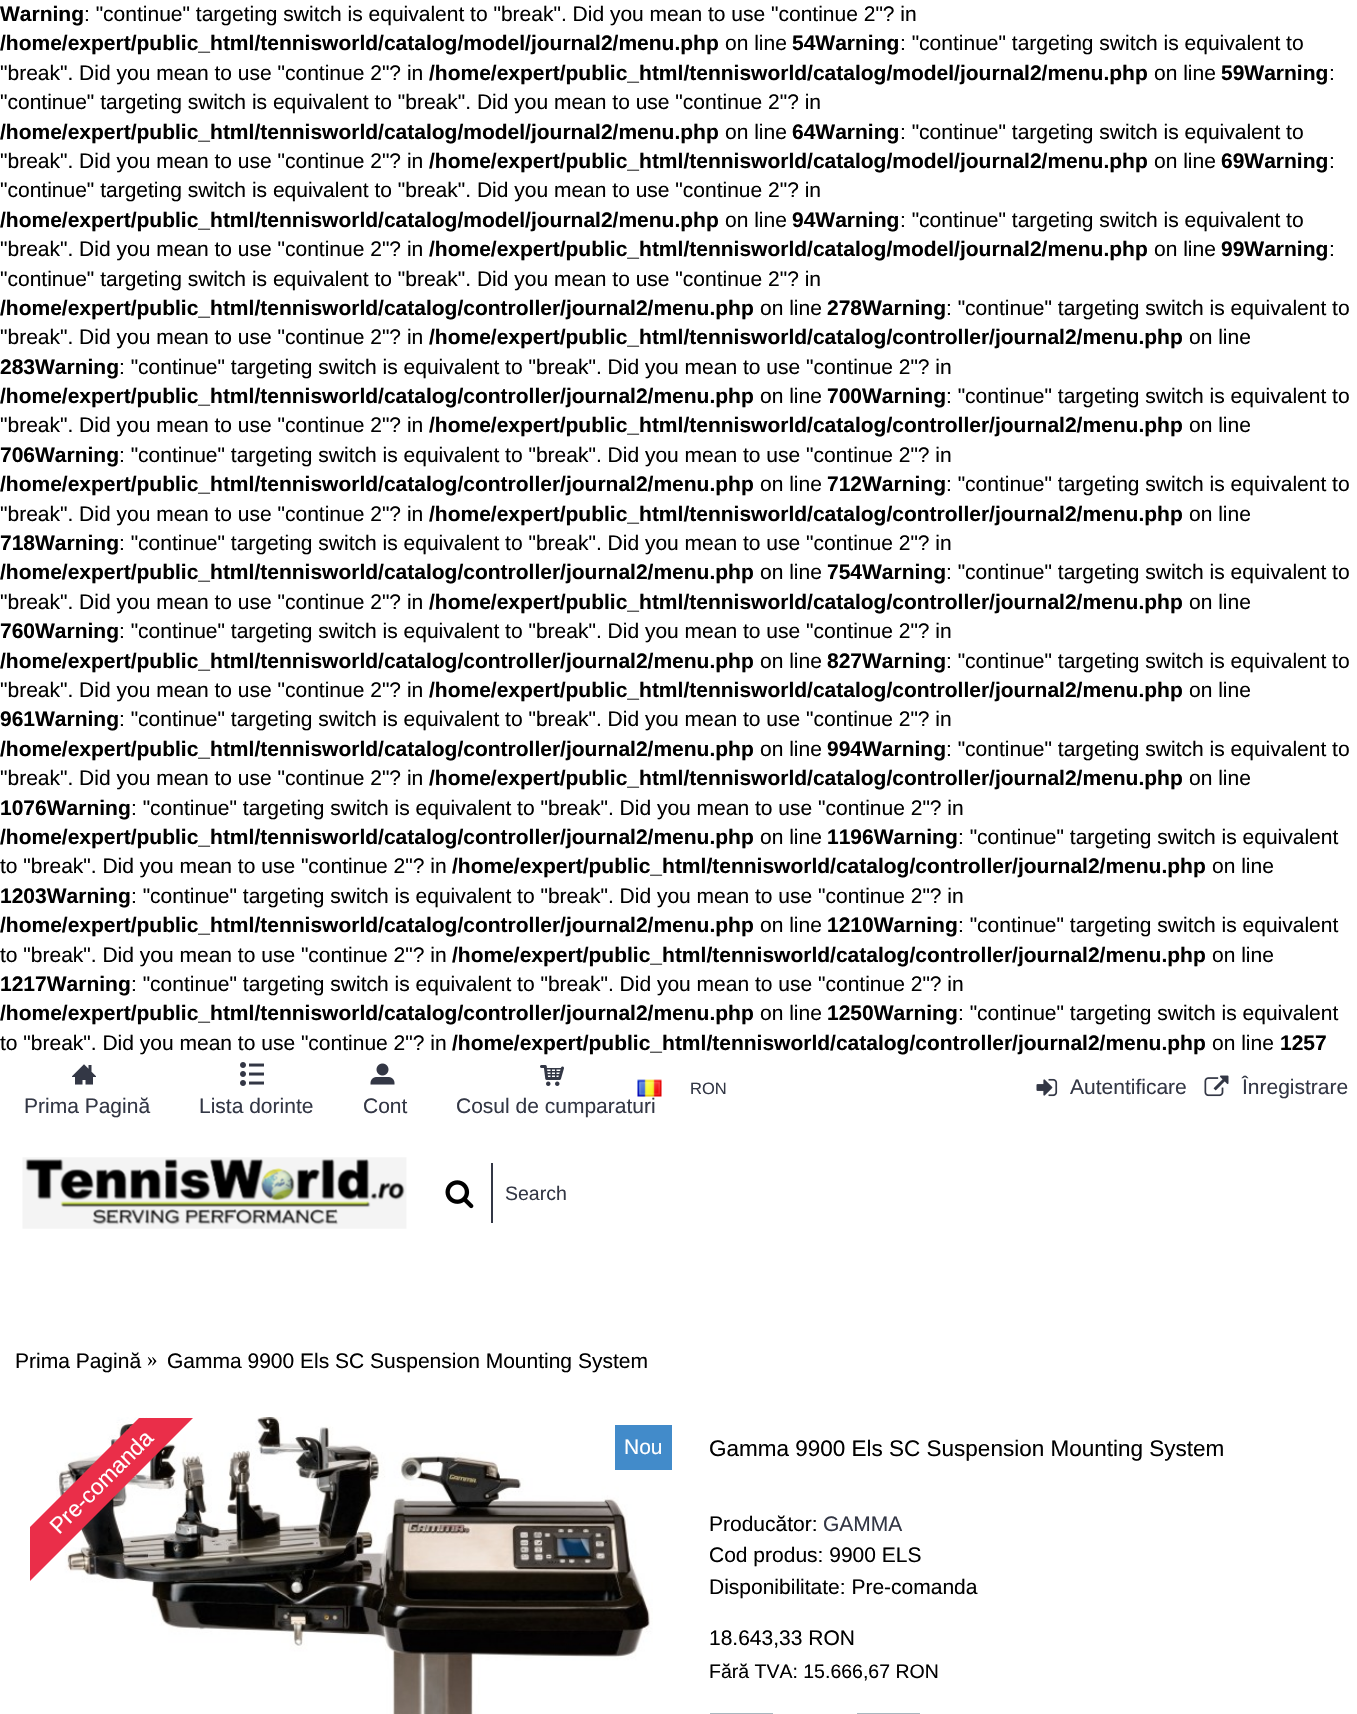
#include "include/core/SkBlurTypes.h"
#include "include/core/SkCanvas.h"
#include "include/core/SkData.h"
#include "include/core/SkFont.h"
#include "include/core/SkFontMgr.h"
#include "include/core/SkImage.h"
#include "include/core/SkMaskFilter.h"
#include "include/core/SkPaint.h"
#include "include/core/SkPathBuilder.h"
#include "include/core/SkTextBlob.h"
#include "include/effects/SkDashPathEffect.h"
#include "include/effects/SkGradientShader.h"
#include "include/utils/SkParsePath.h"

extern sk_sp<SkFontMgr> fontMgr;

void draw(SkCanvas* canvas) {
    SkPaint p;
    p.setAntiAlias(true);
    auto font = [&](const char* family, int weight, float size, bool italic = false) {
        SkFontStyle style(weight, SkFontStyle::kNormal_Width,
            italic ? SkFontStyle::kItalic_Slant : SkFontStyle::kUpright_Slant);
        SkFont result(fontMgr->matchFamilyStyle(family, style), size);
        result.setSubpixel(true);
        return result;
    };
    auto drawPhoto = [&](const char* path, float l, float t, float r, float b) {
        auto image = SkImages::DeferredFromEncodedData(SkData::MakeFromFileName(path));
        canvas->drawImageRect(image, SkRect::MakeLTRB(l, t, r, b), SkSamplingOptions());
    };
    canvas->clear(0xFFFFFFFF);
    auto font1 = font("Liberation Sans", 700, 21);
    p.setColor(0xFF000000);
    canvas->drawString("Warning", 0, 21, font1, p);
    auto font2 = font("Liberation Sans", 400, 21);
    canvas->drawString(": \"continue\" targeting switch is equivalent to \"break\". Did you mean to use \"continue 2\"? in", 84, 21, font2, p);
    canvas->drawString("/home/expert/public_html/tennisworld/catalog/model/journal2/menu.php", 0, 50, font1, p);
    canvas->drawString("on line", 725, 50, font2, p);
    canvas->drawString("54Warning", 792, 50, font1, p);
    canvas->drawString(": \"continue\" targeting switch is equivalent to", 900, 50, font2, p);
    canvas->drawString("\"break\". Did you mean to use \"continue 2\"? in", 0, 80, font2, p);
    canvas->drawString("/home/expert/public_html/tennisworld/catalog/model/journal2/menu.php", 429, 80, font1, p);
    canvas->drawString("on line", 1154, 80, font2, p);
    canvas->drawString("59Warning", 1221, 80, font1, p);
    canvas->drawString(":", 1329, 80, font2, p);
    canvas->drawString("\"continue\" targeting switch is equivalent to \"break\". Did you mean to use \"continue 2\"? in", 0, 109, font2, p);
    canvas->drawString("/home/expert/public_html/tennisworld/catalog/model/journal2/menu.php", 0, 139, font1, p);
    canvas->drawString("on line", 725, 139, font2, p);
    canvas->drawString("64Warning", 792, 139, font1, p);
    canvas->drawString(": \"continue\" targeting switch is equivalent to", 900, 139, font2, p);
    canvas->drawString("\"break\". Did you mean to use \"continue 2\"? in", 0, 168, font2, p);
    canvas->drawString("/home/expert/public_html/tennisworld/catalog/model/journal2/menu.php", 429, 168, font1, p);
    canvas->drawString("on line", 1154, 168, font2, p);
    canvas->drawString("69Warning", 1221, 168, font1, p);
    canvas->drawString(":", 1329, 168, font2, p);
    canvas->drawString("\"continue\" targeting switch is equivalent to \"break\". Did you mean to use \"continue 2\"? in", 0, 197, font2, p);
    canvas->drawString("/home/expert/public_html/tennisworld/catalog/model/journal2/menu.php", 0, 227, font1, p);
    canvas->drawString("on line", 725, 227, font2, p);
    canvas->drawString("94Warning", 792, 227, font1, p);
    canvas->drawString(": \"continue\" targeting switch is equivalent to", 900, 227, font2, p);
    canvas->drawString("\"break\". Did you mean to use \"continue 2\"? in", 0, 256, font2, p);
    canvas->drawString("/home/expert/public_html/tennisworld/catalog/model/journal2/menu.php", 429, 256, font1, p);
    canvas->drawString("on line", 1154, 256, font2, p);
    canvas->drawString("99Warning", 1221, 256, font1, p);
    canvas->drawString(":", 1329, 256, font2, p);
    canvas->drawString("\"continue\" targeting switch is equivalent to \"break\". Did you mean to use \"continue 2\"? in", 0, 286, font2, p);
    canvas->drawString("/home/expert/public_html/tennisworld/catalog/controller/journal2/menu.php", 0, 315, font1, p);
    canvas->drawString("on line", 760, 315, font2, p);
    canvas->drawString("278Warning", 827, 315, font1, p);
    canvas->drawString(": \"continue\" targeting switch is equivalent to", 946, 315, font2, p);
    canvas->drawString("\"break\". Did you mean to use \"continue 2\"? in", 0, 344, font2, p);
    canvas->drawString("/home/expert/public_html/tennisworld/catalog/controller/journal2/menu.php", 429, 344, font1, p);
    canvas->drawString("on line", 1189, 344, font2, p);
    canvas->drawString("283Warning", 0, 374, font1, p);
    canvas->drawString(": \"continue\" targeting switch is equivalent to \"break\". Did you mean to use \"continue 2\"? in", 119, 374, font2, p);
    canvas->drawString("/home/expert/public_html/tennisworld/catalog/controller/journal2/menu.php", 0, 403, font1, p);
    canvas->drawString("on line", 760, 403, font2, p);
    canvas->drawString("700Warning", 827, 403, font1, p);
    canvas->drawString(": \"continue\" targeting switch is equivalent to", 946, 403, font2, p);
    canvas->drawString("\"break\". Did you mean to use \"continue 2\"? in", 0, 432, font2, p);
    canvas->drawString("/home/expert/public_html/tennisworld/catalog/controller/journal2/menu.php", 429, 432, font1, p);
    canvas->drawString("on line", 1189, 432, font2, p);
    canvas->drawString("706Warning", 0, 462, font1, p);
    canvas->drawString(": \"continue\" targeting switch is equivalent to \"break\". Did you mean to use \"continue 2\"? in", 119, 462, font2, p);
    canvas->drawString("/home/expert/public_html/tennisworld/catalog/controller/journal2/menu.php", 0, 491, font1, p);
    canvas->drawString("on line", 760, 491, font2, p);
    canvas->drawString("712Warning", 827, 491, font1, p);
    canvas->drawString(": \"continue\" targeting switch is equivalent to", 946, 491, font2, p);
    canvas->drawString("\"break\". Did you mean to use \"continue 2\"? in", 0, 521, font2, p);
    canvas->drawString("/home/expert/public_html/tennisworld/catalog/controller/journal2/menu.php", 429, 521, font1, p);
    canvas->drawString("on line", 1189, 521, font2, p);
    canvas->drawString("718Warning", 0, 550, font1, p);
    canvas->drawString(": \"continue\" targeting switch is equivalent to \"break\". Did you mean to use \"continue 2\"? in", 119, 550, font2, p);
    canvas->drawString("/home/expert/public_html/tennisworld/catalog/controller/journal2/menu.php", 0, 579, font1, p);
    canvas->drawString("on line", 760, 579, font2, p);
    canvas->drawString("754Warning", 827, 579, font1, p);
    canvas->drawString(": \"continue\" targeting switch is equivalent to", 946, 579, font2, p);
    canvas->drawString("\"break\". Did you mean to use \"continue 2\"? in", 0, 609, font2, p);
    canvas->drawString("/home/expert/public_html/tennisworld/catalog/controller/journal2/menu.php", 429, 609, font1, p);
    canvas->drawString("on line", 1189, 609, font2, p);
    canvas->drawString("760Warning", 0, 638, font1, p);
    canvas->drawString(": \"continue\" targeting switch is equivalent to \"break\". Did you mean to use \"continue 2\"? in", 119, 638, font2, p);
    canvas->drawString("/home/expert/public_html/tennisworld/catalog/controller/journal2/menu.php", 0, 668, font1, p);
    canvas->drawString("on line", 760, 668, font2, p);
    canvas->drawString("827Warning", 827, 668, font1, p);
    canvas->drawString(": \"continue\" targeting switch is equivalent to", 946, 668, font2, p);
    canvas->drawString("\"break\". Did you mean to use \"continue 2\"? in", 0, 697, font2, p);
    canvas->drawString("/home/expert/public_html/tennisworld/catalog/controller/journal2/menu.php", 429, 697, font1, p);
    canvas->drawString("on line", 1189, 697, font2, p);
    canvas->drawString("961Warning", 0, 726, font1, p);
    canvas->drawString(": \"continue\" targeting switch is equivalent to \"break\". Did you mean to use \"continue 2\"? in", 119, 726, font2, p);
    canvas->drawString("/home/expert/public_html/tennisworld/catalog/controller/journal2/menu.php", 0, 756, font1, p);
    canvas->drawString("on line", 760, 756, font2, p);
    canvas->drawString("994Warning", 827, 756, font1, p);
    canvas->drawString(": \"continue\" targeting switch is equivalent to", 946, 756, font2, p);
    canvas->drawString("\"break\". Did you mean to use \"continue 2\"? in", 0, 785, font2, p);
    canvas->drawString("/home/expert/public_html/tennisworld/catalog/controller/journal2/menu.php", 429, 785, font1, p);
    canvas->drawString("on line", 1189, 785, font2, p);
    canvas->drawString("1076Warning", 0, 815, font1, p);
    canvas->drawString(": \"continue\" targeting switch is equivalent to \"break\". Did you mean to use \"continue 2\"? in", 131, 815, font2, p);
    canvas->drawString("/home/expert/public_html/tennisworld/catalog/controller/journal2/menu.php", 0, 844, font1, p);
    canvas->drawString("on line", 760, 844, font2, p);
    canvas->drawString("1196Warning", 827, 844, font1, p);
    canvas->drawString(": \"continue\" targeting switch is equivalent", 958, 844, font2, p);
    canvas->drawString("to \"break\". Did you mean to use \"continue 2\"? in", 0, 873, font2, p);
    canvas->drawString("/home/expert/public_html/tennisworld/catalog/controller/journal2/menu.php", 452, 873, font1, p);
    canvas->drawString("on line", 1212, 873, font2, p);
    canvas->drawString("1203Warning", 0, 903, font1, p);
    canvas->drawString(": \"continue\" targeting switch is equivalent to \"break\". Did you mean to use \"continue 2\"? in", 131, 903, font2, p);
    canvas->drawString("/home/expert/public_html/tennisworld/catalog/controller/journal2/menu.php", 0, 932, font1, p);
    canvas->drawString("on line", 760, 932, font2, p);
    canvas->drawString("1210Warning", 827, 932, font1, p);
    canvas->drawString(": \"continue\" targeting switch is equivalent", 958, 932, font2, p);
    canvas->drawString("to \"break\". Did you mean to use \"continue 2\"? in", 0, 962, font2, p);
    canvas->drawString("/home/expert/public_html/tennisworld/catalog/controller/journal2/menu.php", 452, 962, font1, p);
    canvas->drawString("on line", 1212, 962, font2, p);
    canvas->drawString("1217Warning", 0, 991, font1, p);
    canvas->drawString(": \"continue\" targeting switch is equivalent to \"break\". Did you mean to use \"continue 2\"? in", 131, 991, font2, p);
    canvas->drawString("/home/expert/public_html/tennisworld/catalog/controller/journal2/menu.php", 0, 1020, font1, p);
    canvas->drawString("on line", 760, 1020, font2, p);
    canvas->drawString("1250Warning", 827, 1020, font1, p);
    canvas->drawString(": \"continue\" targeting switch is equivalent", 958, 1020, font2, p);
    canvas->drawString("to \"break\". Did you mean to use \"continue 2\"? in", 0, 1050, font2, p);
    canvas->drawString("/home/expert/public_html/tennisworld/catalog/controller/journal2/menu.php", 452, 1050, font1, p);
    canvas->drawString("on line", 1212, 1050, font2, p);
    canvas->drawString("1257", 1280, 1050, font1, p);
    drawPhoto("media/1.png", 637, 1079, 662, 1097);
    auto font3 = font("Liberation Sans", 400, 16.5f);
    p.setColor(0xFF333745);
    canvas->drawString("RON", 690, 1094, font3, p);
    drawPhoto("media/2.png", 1036, 1078, 1058, 1097);
    canvas->drawString("Autentificare", 1070, 1094, font2, p);
    drawPhoto("media/3.png", 1204, 1075, 1229, 1097);
    canvas->drawString("Înregistrare", 1242, 1094, font2, p);
    drawPhoto("media/4.png", 72, 1064, 96, 1085);
    canvas->drawString("Prima Pagină", 24, 1113, font2, p);
    drawPhoto("media/5.png", 240, 1062, 264, 1086);
    canvas->drawString("Lista dorinte", 199, 1113, font2, p);
    drawPhoto("media/6.png", 370, 1063, 395, 1085);
    canvas->drawString("Cont", 363, 1113, font2, p);
    drawPhoto("media/7.png", 540, 1065, 564, 1086);
    canvas->drawString("Cosul de cumparaturi", 456, 1113, font2, p);
    drawPhoto("media/8.png", 22, 1157, 407, 1229);
    canvas->drawRect(SkRect::MakeLTRB(491, 1163, 493, 1223), p);
    drawPhoto("media/9.png", 445, 1180, 474, 1209);
    auto font4 = font("Liberation Sans", 400, 19.5f);
    canvas->drawString("Search", 505, 1200, font4, p);
    p.setColor(0xFF000000);
    canvas->drawString("Prima Pagină", 15, 1368, font2, p);
    auto font5 = font("Liberation Serif", 400, 21);
    canvas->drawString("»", 147, 1366, font5, p);
    canvas->drawString("Gamma 9900 Els SC Suspension Mounting System", 167, 1368, font2, p);
    drawPhoto("media/10.png", 56, 1417, 653, 1714);
    canvas->save();
    canvas->clipRect(SkRect::MakeLTRB(30, 1418, 1328, 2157));
    p.setColor(0xFFEA2E49);
    canvas->drawPath(SkPathBuilder().moveTo(-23, 1580).lineTo(200, 1357).lineTo(227, 1384).lineTo(4, 1607).close().detach(), p);
    canvas->restore();
    auto font6 = font("Liberation Sans", 400, 22.5f);
    p.setColor(0xFFFFFFFF);
    canvas->save();
    canvas->rotate(-45, 59, 1535);
    canvas->drawString("Pre-comanda", 59, 1535, font6, p);
    canvas->restore();
    p.setColor(0xFF428BCA);
    canvas->drawRect(SkRect::MakeLTRB(615, 1425, 672, 1470), p);
    p.setColor(0xFFFFFFFF);
    canvas->drawString("Nou", 624, 1454, font2, p);
    p.setColor(0xFF000000);
    canvas->drawString("Gamma 9900 Els SC Suspension Mounting System", 709, 1456, font6, p);
    canvas->drawString("Producător:", 709, 1531, font2, p);
    p.setColor(0xFF333745);
    canvas->drawString("GAMMA", 823, 1531, font2, p);
    p.setColor(0xFF000000);
    {
        const struct { const char* s; float x, y; } items[] = {
            {"Cod produs: 9900 ELS", 709, 1562},
            {"Disponibilitate: Pre-comanda", 709, 1594},
            {"18.643,33 RON", 709, 1645},
        };
        for (auto [s, x, y] : items) {
            canvas->drawString(s, x, y, font2, p);
        }
    }
    canvas->drawString("Fără TVA: 15.666,67 RON", 709, 1678, font4, p);
    p.setColor(0xFFA9B8C0);
    canvas->drawRect(SkRect::MakeLTRB(710, 1713, 773, 1714), p);
    canvas->drawRect(SkRect::MakeLTRB(857, 1713, 920, 1714), p);
}
